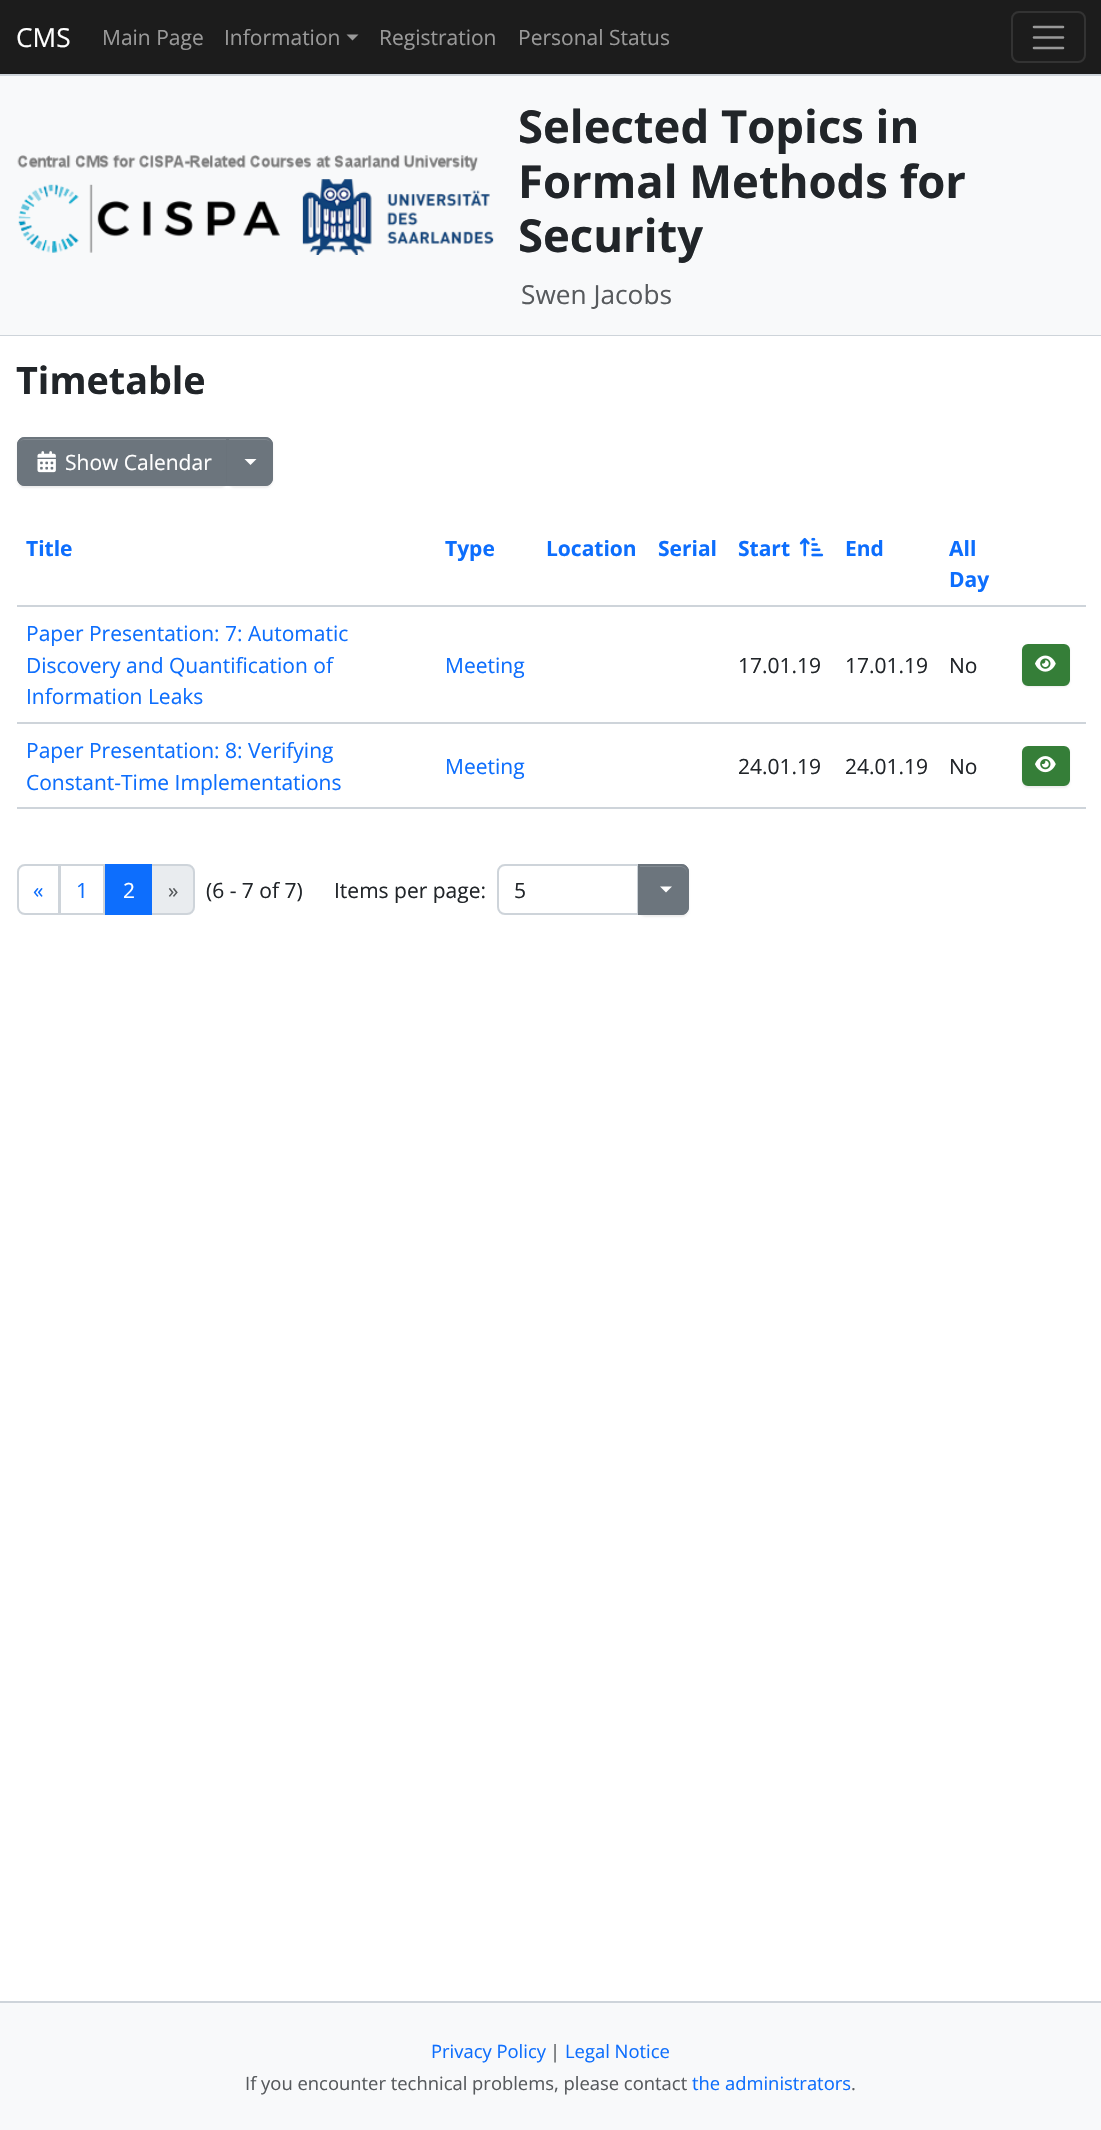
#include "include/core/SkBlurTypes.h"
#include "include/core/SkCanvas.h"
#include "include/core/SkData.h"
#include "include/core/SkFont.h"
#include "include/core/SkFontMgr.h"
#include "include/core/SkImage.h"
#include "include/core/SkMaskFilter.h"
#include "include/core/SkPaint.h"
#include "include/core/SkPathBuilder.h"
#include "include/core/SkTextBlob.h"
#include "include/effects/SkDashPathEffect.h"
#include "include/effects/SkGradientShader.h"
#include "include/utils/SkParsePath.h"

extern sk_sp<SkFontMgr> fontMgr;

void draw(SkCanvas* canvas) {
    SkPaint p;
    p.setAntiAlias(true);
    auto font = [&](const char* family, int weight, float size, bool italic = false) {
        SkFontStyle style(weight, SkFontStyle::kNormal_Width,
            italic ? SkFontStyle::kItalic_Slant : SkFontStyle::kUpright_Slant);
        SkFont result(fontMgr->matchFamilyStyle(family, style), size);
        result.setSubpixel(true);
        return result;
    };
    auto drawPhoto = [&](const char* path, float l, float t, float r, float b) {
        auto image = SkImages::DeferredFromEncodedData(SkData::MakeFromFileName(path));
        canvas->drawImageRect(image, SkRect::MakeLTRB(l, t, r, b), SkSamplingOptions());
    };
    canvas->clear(0xFFF8F9FA);
    p.setColor(0xFF1C1C1C);
    canvas->drawRect(SkRect::MakeLTRB(0, 0, 1101, 74), p);
    p.setColor(0xFFCED4DA);
    canvas->drawRect(SkRect::MakeLTRB(0, 74, 1101, 76), p);
    auto font1 = font("Open Sans", 400, 26.25f);
    p.setColor(0xFFFFFFFF);
    canvas->drawString("CMS", 16, 47, font1, p);
    auto font2 = font("Open Sans", 400, 21);
    p.setColor(0xFF999999);
    canvas->drawString("Main Page", 102, 45, font2, p);
    canvas->drawString("Information", 224, 45, font2, p);
    canvas->drawPath(SkPathBuilder().moveTo(346.5f, 34.5f).lineTo(358.5f, 34.5f).lineTo(352.5f, 40.5f).close().detach(), p);
    canvas->drawString("Registration", 379, 45, font2, p);
    canvas->drawString("Personal Status", 518, 45, font2, p);
    p.setStyle(SkPaint::kStroke_Style);
    p.setStrokeWidth(2);
    p.setColor(0xFF333333);
    canvas->drawRoundRect(SkRect::MakeLTRB(1012, 12, 1085, 62), 7, 7, p);
    p.setStrokeWidth(2.6f);
    p.setStrokeCap(SkPaint::kRound_Cap);
    p.setColor(0xFF999999);
    canvas->drawPath(SkPathBuilder().moveTo(1034, 27).lineTo(1063, 27).moveTo(1034, 37.5f).lineTo(1063, 37.5f).moveTo(1034, 48).lineTo(1063, 48).detach(), p);
    p.setStyle(SkPaint::kFill_Style);
    p.setColor(0xFFCED4DA);
    canvas->drawRect(SkRect::MakeLTRB(0, 335, 1101, 336), p);
    drawPhoto("media/1.png", 17, 155, 494, 255);
    auto font3 = font("Open Sans", 700, 45.4f);
    p.setColor(0xFF212529);
    {
        const struct { const char* s; float x, y; } items[] = {
            {"Selected Topics in", 518, 143},
            {"Formal Methods for", 518, 198},
            {"Security", 518, 252},
        };
        for (auto [s, x, y] : items) {
            canvas->drawString(s, x, y, font3, p);
        }
    }
    p.setColor(0xFF575A5D);
    canvas->drawString("Swen Jacobs", 521, 304, font1, p);
    p.setColor(0xFFFFFFFF);
    canvas->drawRect(SkRect::MakeLTRB(0, 336, 1101, 2001), p);
    auto font4 = font("Open Sans", 700, 37.75f);
    p.setColor(0xFF212529);
    canvas->drawString("Timetable", 16, 394, font4, p);
    p.setColor(0x12000000);
    p.setMaskFilter(SkMaskFilter::MakeBlur(kNormal_SkBlurStyle, 1));
    canvas->drawRoundRect(SkRect::MakeLTRB(17, 438, 228, 488), 8, 8, p);
    p.setMaskFilter(nullptr);
    p.setColor(0xFF6C757D);
    canvas->drawPath(SkPathBuilder().moveTo(25, 437).lineTo(228, 437).lineTo(228, 486).lineTo(25, 486).cubicTo(20.5f, 486, 17, 482.5f, 17, 478).lineTo(17, 445).cubicTo(17, 440.5f, 20.5f, 437, 25, 437).close().detach(), p);
    p.setColor(0xFF828A91);
    canvas->drawPath(SkPathBuilder().moveTo(24, 440).lineTo(226, 440).lineTo(226, 485).lineTo(227, 485).lineTo(227, 438).lineTo(24, 438).cubicTo(21, 438, 18, 441, 18, 444).lineTo(18, 446).cubicTo(18, 442, 21, 440, 24, 440).close().detach(), p);
    p.setStyle(SkPaint::kStroke_Style);
    p.setStrokeWidth(2);
    p.setStrokeCap(SkPaint::kButt_Cap);
    p.setColor(0xFF6C757D);
    canvas->drawPath(SkPathBuilder().moveTo(25, 438).lineTo(227, 438).lineTo(227, 485).lineTo(25, 485).cubicTo(21, 485, 18, 482, 18, 478).lineTo(18, 445).cubicTo(18, 441, 21, 438, 25, 438).close().detach(), p);
    drawPhoto("media/2.png", 37, 451, 56, 473);
    p.setStyle(SkPaint::kFill_Style);
    p.setColor(0xFFFFFFFF);
    canvas->drawString("Show Calendar", 65, 470, font2, p);
    p.setColor(0x12000000);
    p.setMaskFilter(SkMaskFilter::MakeBlur(kNormal_SkBlurStyle, 1));
    canvas->drawRoundRect(SkRect::MakeLTRB(227, 438, 273, 488), 8, 8, p);
    p.setMaskFilter(nullptr);
    p.setColor(0xFF6C757D);
    canvas->drawPath(SkPathBuilder().moveTo(227, 437).lineTo(265, 437).cubicTo(269.5f, 437, 273, 440.5f, 273, 445).lineTo(273, 478).cubicTo(273, 482.5f, 269.5f, 486, 265, 486).lineTo(227, 486).close().detach(), p);
    p.setColor(0xFF828A91);
    canvas->drawPath(SkPathBuilder().moveTo(228, 440).lineTo(265, 440).cubicTo(269, 440, 272, 442, 272, 446).cubicTo(272, 435, 262, 438, 253, 438).lineTo(228, 438).close().detach(), p);
    p.setStyle(SkPaint::kStroke_Style);
    p.setColor(0xFF6C757D);
    canvas->drawPath(SkPathBuilder().moveTo(228, 438).lineTo(265, 438).cubicTo(269, 438, 272, 441, 272, 445).lineTo(272, 478).cubicTo(272, 482, 269, 485, 265, 485).lineTo(228, 485).close().detach(), p);
    p.setStyle(SkPaint::kFill_Style);
    p.setColor(0xFFFFFFFF);
    canvas->drawPath(SkPathBuilder().moveTo(244.5f, 459).lineTo(256.5f, 459).lineTo(250.5f, 465).close().detach(), p);
    auto font5 = font("Open Sans", 700, 21);
    p.setColor(0xFF0D6EFD);
    {
        const struct { const char* s; float x, y; } items[] = {
            {"Title", 26, 556},
            {"Type", 445, 556},
            {"Location", 546, 556},
            {"Serial", 658, 556},
            {"Start", 738, 556},
        };
        for (auto [s, x, y] : items) {
            canvas->drawString(s, x, y, font5, p);
        }
    }
    drawPhoto("media/3.png", 799, 537, 824, 557);
    {
        const struct { const char* s; float x, y; } items[] = {
            {"End", 845, 556},
            {"All", 949, 556},
            {"Day", 949, 587},
        };
        for (auto [s, x, y] : items) {
            canvas->drawString(s, x, y, font5, p);
        }
    }
    p.setColor(0xFFCED4DA);
    canvas->drawRect(SkRect::MakeLTRB(17, 605, 1086, 607), p);
    p.setColor(0xFF0D6EFD);
    {
        const struct { const char* s; float x, y; } items[] = {
            {"Paper Presentation: 7: Automatic", 26, 641},
            {"Discovery and Quantification of", 26, 673},
            {"Information Leaks", 26, 704},
        };
        for (auto [s, x, y] : items) {
            canvas->drawString(s, x, y, font2, p);
        }
    }
    p.setColor(0xFFCED4DA);
    canvas->drawRect(SkRect::MakeLTRB(17, 722, 1086, 724), p);
    p.setColor(0x12000000);
    p.setMaskFilter(SkMaskFilter::MakeBlur(kNormal_SkBlurStyle, 1));
    canvas->drawRoundRect(SkRect::MakeLTRB(1022, 645, 1070, 687), 6, 6, p);
    p.setMaskFilter(nullptr);
    p.setColor(0xFF357E38);
    canvas->drawRoundRect(SkRect::MakeLTRB(1023, 645, 1069, 685), 5, 5, p);
    p.setStyle(SkPaint::kStroke_Style);
    canvas->drawRoundRect(SkRect::MakeLTRB(1023, 645, 1069, 685), 5, 5, p);
    drawPhoto("media/4.png", 1035, 655, 1056, 672);
    p.setStyle(SkPaint::kFill_Style);
    p.setColor(0xFF0D6EFD);
    canvas->drawString("Meeting", 445, 673, font2, p);
    p.setColor(0xFF212529);
    {
        const struct { const char* s; float x, y; } items[] = {
            {"17.01.19", 738, 673},
            {"17.01.19", 845, 673},
            {"No", 949, 673},
        };
        for (auto [s, x, y] : items) {
            canvas->drawString(s, x, y, font2, p);
        }
    }
    p.setColor(0xFF0D6EFD);
    canvas->drawString("Paper Presentation: 8: Verifying", 26, 758, font2, p);
    canvas->drawString("Constant-Time Implementations", 26, 790, font2, p);
    p.setColor(0xFFCED4DA);
    canvas->drawRect(SkRect::MakeLTRB(17, 807, 1086, 809), p);
    p.setColor(0x12000000);
    p.setMaskFilter(SkMaskFilter::MakeBlur(kNormal_SkBlurStyle, 1));
    canvas->drawRoundRect(SkRect::MakeLTRB(1022, 747, 1070, 788), 6, 6, p);
    p.setMaskFilter(nullptr);
    p.setColor(0xFF357E38);
    canvas->drawRoundRect(SkRect::MakeLTRB(1023, 747, 1069, 785), 5, 5, p);
    p.setStyle(SkPaint::kStroke_Style);
    canvas->drawRoundRect(SkRect::MakeLTRB(1023, 747, 1069, 785), 5, 5, p);
    drawPhoto("media/5.png", 1035, 756, 1056, 773);
    p.setStyle(SkPaint::kFill_Style);
    p.setColor(0xFF0D6EFD);
    canvas->drawString("Meeting", 445, 774, font2, p);
    p.setColor(0xFF212529);
    {
        const struct { const char* s; float x, y; } items[] = {
            {"24.01.19", 738, 774},
            {"24.01.19", 845, 774},
            {"No", 949, 774},
        };
        for (auto [s, x, y] : items) {
            canvas->drawString(s, x, y, font2, p);
        }
    }
    p.setStyle(SkPaint::kStroke_Style);
    p.setColor(0xFFCED4DA);
    canvas->drawPath(SkPathBuilder().moveTo(25, 865).lineTo(59, 865).lineTo(59, 914).lineTo(25, 914).cubicTo(21, 914, 18, 911, 18, 907).lineTo(18, 872).cubicTo(18, 868, 21, 865, 25, 865).close().detach(), p);
    p.setStyle(SkPaint::kFill_Style);
    p.setColor(0xFF0D6EFD);
    canvas->drawString("«", 33, 898, font2, p);
    p.setStyle(SkPaint::kStroke_Style);
    p.setColor(0xFFCED4DA);
    canvas->drawRect(SkRect::MakeLTRB(60, 865, 104, 914), p);
    p.setStyle(SkPaint::kFill_Style);
    p.setColor(0xFF0D6EFD);
    canvas->drawString("1", 76, 898, font2, p);
    p.setColor(0xFFE9ECEF);
    canvas->drawPath(SkPathBuilder().moveTo(151, 865).lineTo(187, 865).cubicTo(191, 865, 194, 868, 194, 872).lineTo(194, 907).cubicTo(194, 911, 191, 914, 187, 914).lineTo(151, 914).close().detach(), p);
    p.setStyle(SkPaint::kStroke_Style);
    p.setColor(0xFFCED4DA);
    canvas->drawPath(SkPathBuilder().moveTo(151, 865).lineTo(187, 865).cubicTo(191, 865, 194, 868, 194, 872).lineTo(194, 907).cubicTo(194, 911, 191, 914, 187, 914).lineTo(151, 914).close().detach(), p);
    p.setStyle(SkPaint::kFill_Style);
    p.setColor(0xFF0D6EFD);
    canvas->drawRect(SkRect::MakeLTRB(105, 864, 152, 915), p);
    p.setColor(0xFFFFFFFF);
    canvas->drawString("2", 123, 898, font2, p);
    p.setColor(0xFF575A5D);
    canvas->drawString("»", 168, 898, font2, p);
    p.setColor(0xFF212529);
    canvas->drawString("(6 - 7 of 7)", 206, 898, font2, p);
    canvas->drawString("Items per page:", 334, 898, font2, p);
    p.setStyle(SkPaint::kStroke_Style);
    p.setColor(0xFFCED4DA);
    canvas->drawPath(SkPathBuilder().moveTo(505, 865).lineTo(638, 865).lineTo(638, 914).lineTo(505, 914).cubicTo(501, 914, 498, 911, 498, 907).lineTo(498, 872).cubicTo(498, 868, 501, 865, 505, 865).close().detach(), p);
    p.setStyle(SkPaint::kFill_Style);
    p.setColor(0xFF212529);
    canvas->drawString("5", 514, 898, font2, p);
    p.setColor(0x12000000);
    p.setMaskFilter(SkMaskFilter::MakeBlur(kNormal_SkBlurStyle, 1));
    canvas->drawRoundRect(SkRect::MakeLTRB(638, 866, 689, 917), 8, 8, p);
    p.setMaskFilter(nullptr);
    p.setColor(0xFF6C757D);
    canvas->drawPath(SkPathBuilder().moveTo(638, 864).lineTo(681, 864).cubicTo(685.5f, 864, 689, 867.5f, 689, 872).lineTo(689, 907).cubicTo(689, 911.5f, 685.5f, 915, 681, 915).lineTo(638, 915).close().detach(), p);
    p.setColor(0xFF828A91);
    canvas->drawPath(SkPathBuilder().moveTo(639, 867).lineTo(681, 867).cubicTo(684, 867, 687, 870, 687, 873).lineTo(687, 872).cubicTo(687, 869, 684, 866, 681, 866).lineTo(639, 866).close().detach(), p);
    p.setStyle(SkPaint::kStroke_Style);
    p.setColor(0xFF6C757D);
    canvas->drawPath(SkPathBuilder().moveTo(639, 865).lineTo(681, 865).cubicTo(685, 865, 688, 868, 688, 872).lineTo(688, 907).cubicTo(688, 911, 685, 914, 681, 914).lineTo(639, 914).close().detach(), p);
    p.setStyle(SkPaint::kFill_Style);
    p.setColor(0xFFFFFFFF);
    canvas->drawPath(SkPathBuilder().moveTo(660, 886.5f).lineTo(672, 886.5f).lineTo(666, 892.5f).close().detach(), p);
    p.setColor(0xFFCED4DA);
    canvas->drawRect(SkRect::MakeLTRB(0, 2001, 1101, 2003), p);
    auto font6 = font("Open Sans", 400, 18.4f);
    p.setColor(0xFF0D6EFD);
    canvas->drawString("Privacy Policy", 431, 2058, font6, p);
    p.setColor(0xFF575A5D);
    canvas->drawString("|", 550, 2058, font6, p);
    p.setColor(0xFF0D6EFD);
    canvas->drawString("Legal Notice", 565, 2058, font6, p);
    p.setColor(0xFF575A5D);
    canvas->drawString("If you encounter technical problems, please contact", 245, 2090, font6, p);
    p.setColor(0xFF0D6EFD);
    canvas->drawString("the administrators", 692, 2090, font6, p);
    p.setColor(0xFF575A5D);
    canvas->drawString(".", 851, 2090, font6, p);
}
